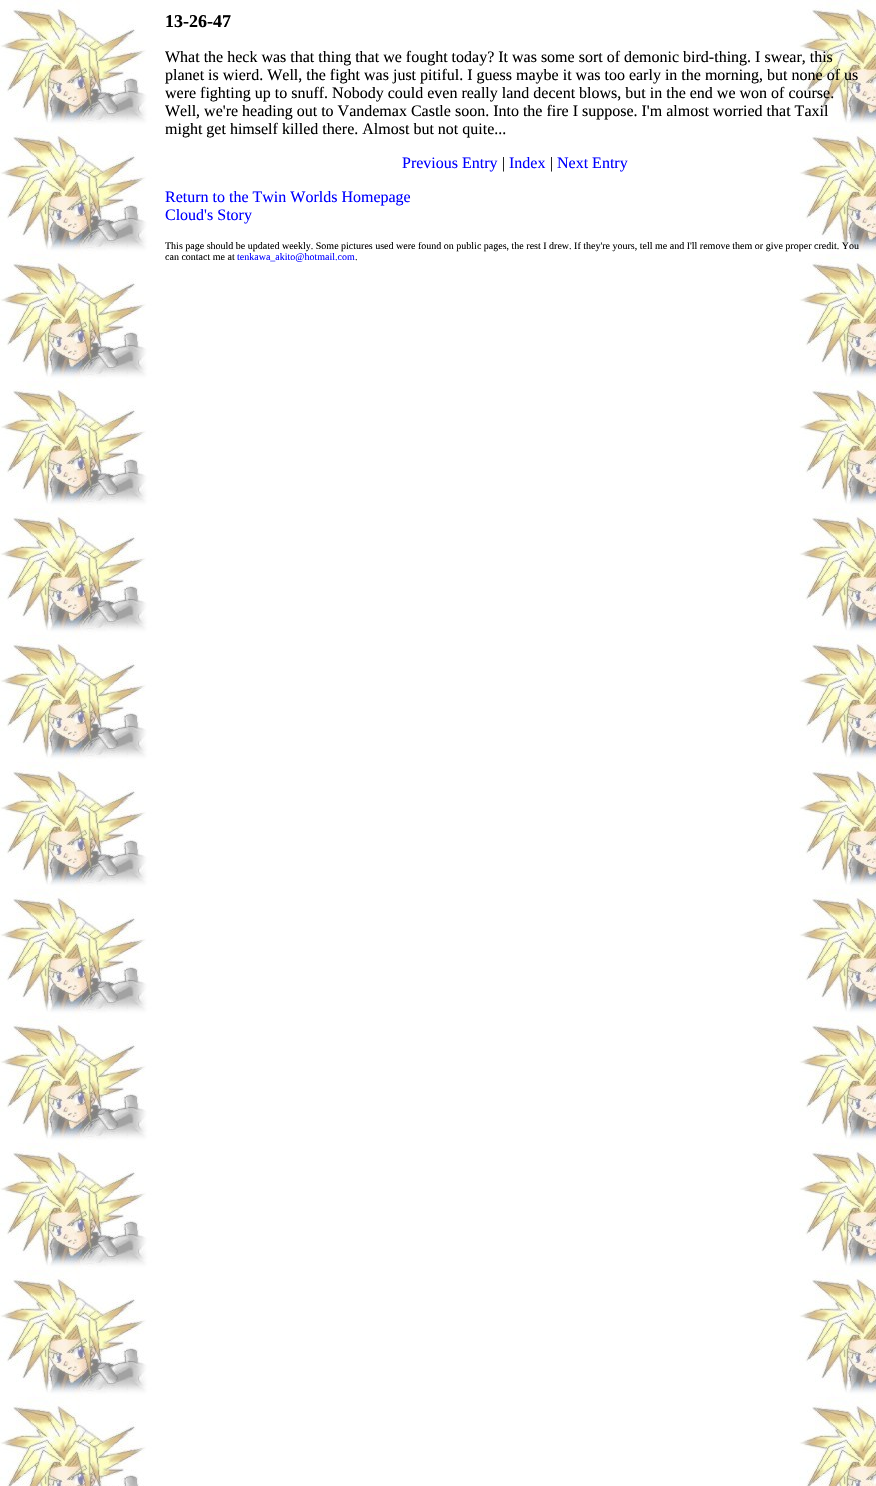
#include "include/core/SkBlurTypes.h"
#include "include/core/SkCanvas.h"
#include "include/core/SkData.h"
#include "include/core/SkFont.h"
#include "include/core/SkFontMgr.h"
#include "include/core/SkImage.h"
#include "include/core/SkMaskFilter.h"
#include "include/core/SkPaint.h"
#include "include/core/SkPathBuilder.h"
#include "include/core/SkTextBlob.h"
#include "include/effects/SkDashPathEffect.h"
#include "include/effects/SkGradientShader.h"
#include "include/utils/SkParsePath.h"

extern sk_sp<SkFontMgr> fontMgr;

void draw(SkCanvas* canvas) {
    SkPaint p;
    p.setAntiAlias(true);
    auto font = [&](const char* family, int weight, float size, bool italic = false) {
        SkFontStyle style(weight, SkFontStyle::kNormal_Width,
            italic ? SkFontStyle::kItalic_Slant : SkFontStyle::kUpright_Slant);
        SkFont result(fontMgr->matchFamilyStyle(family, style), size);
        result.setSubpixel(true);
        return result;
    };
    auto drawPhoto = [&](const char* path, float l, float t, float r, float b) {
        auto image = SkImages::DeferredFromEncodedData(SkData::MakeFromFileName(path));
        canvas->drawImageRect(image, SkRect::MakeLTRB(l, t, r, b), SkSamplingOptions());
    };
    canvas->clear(0xFFFFFFFF);
    drawPhoto("media/1.png", 0, 0, 876, 1486);
    auto font1 = font("Liberation Serif", 700, 18);
    p.setColor(0xFF000000);
    canvas->drawString("13-26-47", 165, 27, font1, p);
    auto font2 = font("Liberation Serif", 400, 16);
    {
        const struct { const char* s; float x, y; } items[] = {
            {"What the heck was that thing that we fought today? It was some sort of demonic bird-thing. I swear, this", 165, 62},
            {"planet is wierd. Well, the fight was just pitiful. I guess maybe it was too early in the morning, but none of us", 165, 80},
            {"were fighting up to snuff. Nobody could even really land decent blows, but in the end we won of course.", 165, 98},
            {"Well, we're heading out to Vandemax Castle soon. Into the fire I suppose. I'm almost worried that Taxil", 165, 116},
            {"might get himself killed there. Almost but not quite...", 165, 134},
        };
        for (auto [s, x, y] : items) {
            canvas->drawString(s, x, y, font2, p);
        }
    }
    p.setColor(0xFF0000FF);
    canvas->drawString("Previous Entry", 402, 168, font2, p);
    p.setColor(0xFF000000);
    canvas->drawString("|", 502, 168, font2, p);
    p.setColor(0xFF0000FF);
    canvas->drawString("Index", 509, 168, font2, p);
    p.setColor(0xFF000000);
    canvas->drawString("|", 550, 168, font2, p);
    p.setColor(0xFF0000FF);
    {
        const struct { const char* s; float x, y; } items[] = {
            {"Next Entry", 557, 168},
            {"Return to the Twin Worlds Homepage", 165, 202},
            {"Cloud's Story", 165, 220},
        };
        for (auto [s, x, y] : items) {
            canvas->drawString(s, x, y, font2, p);
        }
    }
    auto font3 = font("Liberation Serif", 400, 10);
    p.setColor(0xFF000000);
    canvas->drawString("This page should be updated weekly. Some pictures used were found on public pages, the rest I drew. If they're yours, tell me and I'll remove them or give proper credit. You", 165, 249, font3, p);
    canvas->drawString("can contact me at", 165, 260, font3, p);
    p.setColor(0xFF0000FF);
    canvas->drawString("tenkawa_akito@hotmail.com", 237, 260, font3, p);
    p.setColor(0xFF000000);
    canvas->drawString(".", 355, 260, font3, p);
}
